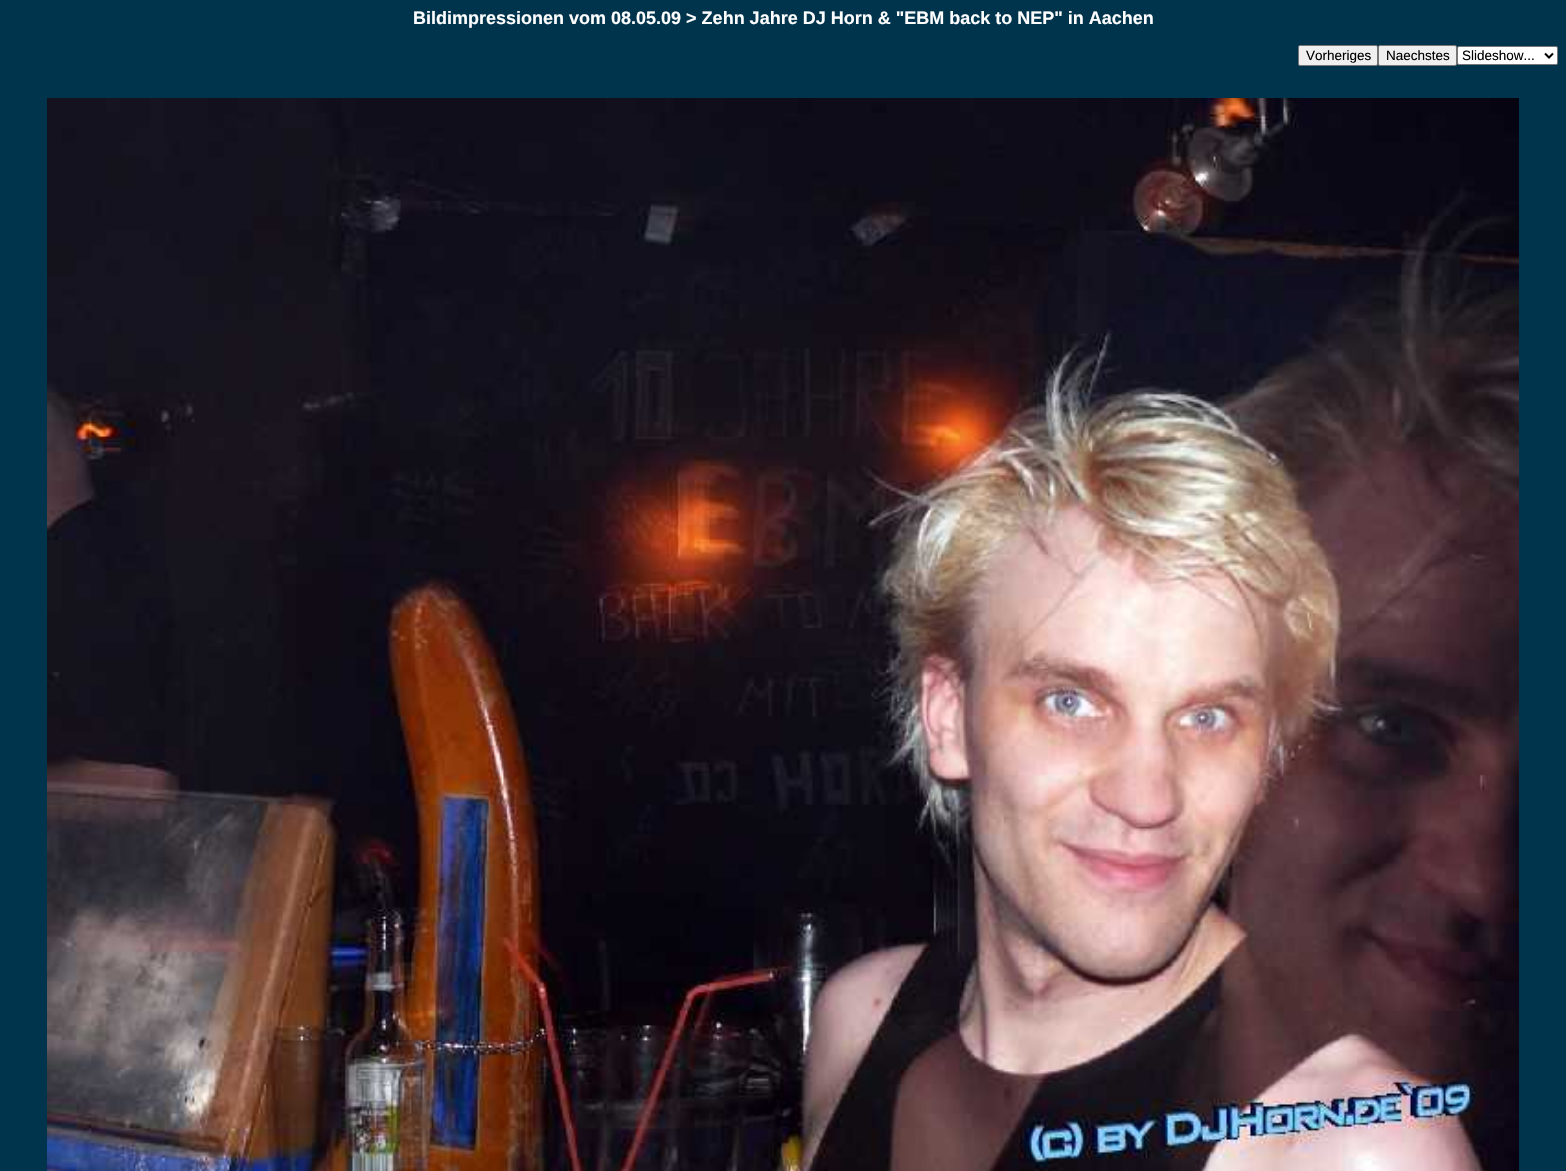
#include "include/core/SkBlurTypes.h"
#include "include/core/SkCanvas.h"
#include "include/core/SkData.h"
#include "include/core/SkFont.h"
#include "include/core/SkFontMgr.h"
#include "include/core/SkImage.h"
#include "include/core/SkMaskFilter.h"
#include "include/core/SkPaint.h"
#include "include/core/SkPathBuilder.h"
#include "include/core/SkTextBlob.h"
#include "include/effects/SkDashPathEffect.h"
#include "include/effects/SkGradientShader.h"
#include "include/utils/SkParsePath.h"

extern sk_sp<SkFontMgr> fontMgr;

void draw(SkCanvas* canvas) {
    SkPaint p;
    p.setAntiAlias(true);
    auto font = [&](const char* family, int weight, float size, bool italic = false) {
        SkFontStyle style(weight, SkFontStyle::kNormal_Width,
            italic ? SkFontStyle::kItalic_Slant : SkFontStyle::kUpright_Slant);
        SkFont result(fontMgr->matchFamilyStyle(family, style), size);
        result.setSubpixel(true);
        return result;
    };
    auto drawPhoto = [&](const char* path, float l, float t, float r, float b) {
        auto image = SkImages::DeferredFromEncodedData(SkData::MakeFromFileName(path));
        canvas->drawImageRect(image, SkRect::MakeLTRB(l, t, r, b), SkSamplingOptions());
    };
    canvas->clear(0xFF00334C);
    auto font1 = font("Liberation Sans", 700, 18);
    p.setColor(0xFFFFFFFF);
    canvas->drawString("Bildimpressionen vom 08.05.09 > Zehn Jahre DJ Horn & \"EBM back to NEP\" in Aachen", 413, 24, font1, p);
    p.setColor(0xFFEFEFEF);
    canvas->drawRoundRect(SkRect::MakeLTRB(1298.5f, 45.5f, 1377.5f, 65.5f), 1.5f, 1.5f, p);
    p.setStyle(SkPaint::kStroke_Style);
    p.setStrokeWidth(1);
    p.setColor(0xFF767676);
    canvas->drawRoundRect(SkRect::MakeLTRB(1298.5f, 45.5f, 1377.5f, 65.5f), 1.5f, 1.5f, p);
    auto font2 = font("Liberation Sans", 400, 13.5f);
    p.setStyle(SkPaint::kFill_Style);
    p.setColor(0xFF000000);
    canvas->drawString("Vorheriges", 1306, 60, font2, p);
    p.setColor(0xFFEFEFEF);
    canvas->drawRoundRect(SkRect::MakeLTRB(1378.5f, 45.5f, 1456.5f, 65.5f), 1.5f, 1.5f, p);
    p.setStyle(SkPaint::kStroke_Style);
    p.setColor(0xFF767676);
    canvas->drawRoundRect(SkRect::MakeLTRB(1378.5f, 45.5f, 1456.5f, 65.5f), 1.5f, 1.5f, p);
    p.setStyle(SkPaint::kFill_Style);
    p.setColor(0xFF000000);
    canvas->drawString("Naechstes", 1386, 60, font2, p);
    p.setColor(0xFFFFFFFF);
    canvas->drawRoundRect(SkRect::MakeLTRB(1457.5f, 46.5f, 1557.5f, 64.5f), 1.5f, 1.5f, p);
    p.setStyle(SkPaint::kStroke_Style);
    p.setColor(0xFF767676);
    canvas->drawRoundRect(SkRect::MakeLTRB(1457.5f, 46.5f, 1557.5f, 64.5f), 1.5f, 1.5f, p);
    p.setStrokeWidth(2);
    p.setColor(0xFF000000);
    canvas->drawPath(SkPathBuilder().moveTo(1545, 53.5f).lineTo(1549, 57.5f).lineTo(1553, 53.5f).detach(), p);
    p.setStyle(SkPaint::kFill_Style);
    canvas->drawString("Slideshow...", 1462, 60, font2, p);
    drawPhoto("media/1.png", 47, 98, 1519, 1171);
}
